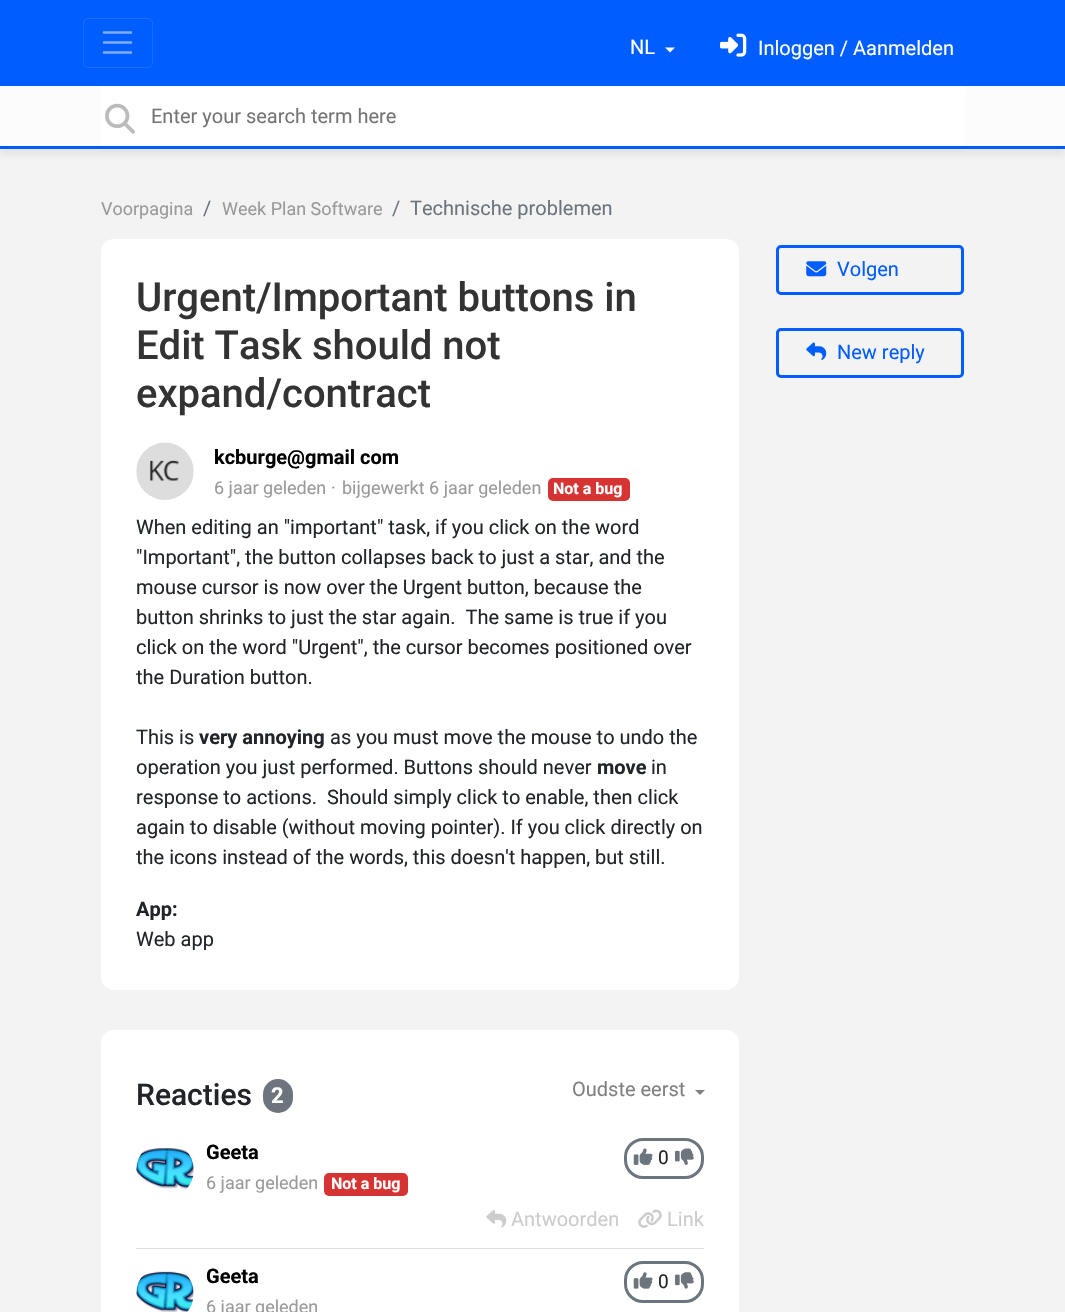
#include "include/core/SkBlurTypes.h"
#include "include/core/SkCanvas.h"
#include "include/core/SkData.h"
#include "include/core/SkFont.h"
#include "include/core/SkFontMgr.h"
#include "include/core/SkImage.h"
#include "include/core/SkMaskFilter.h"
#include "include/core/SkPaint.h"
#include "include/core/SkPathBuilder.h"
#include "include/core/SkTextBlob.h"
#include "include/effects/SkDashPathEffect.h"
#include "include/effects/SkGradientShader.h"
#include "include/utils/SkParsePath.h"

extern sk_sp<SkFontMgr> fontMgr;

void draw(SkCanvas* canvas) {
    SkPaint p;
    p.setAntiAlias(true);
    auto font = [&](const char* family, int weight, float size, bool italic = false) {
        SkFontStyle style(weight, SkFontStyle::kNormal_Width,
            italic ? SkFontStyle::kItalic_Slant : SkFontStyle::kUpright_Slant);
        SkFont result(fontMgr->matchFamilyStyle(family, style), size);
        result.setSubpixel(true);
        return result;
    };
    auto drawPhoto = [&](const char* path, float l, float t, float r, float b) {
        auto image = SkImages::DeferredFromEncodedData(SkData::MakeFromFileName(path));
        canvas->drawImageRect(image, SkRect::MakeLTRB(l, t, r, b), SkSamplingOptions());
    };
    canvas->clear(0xFFF3F3F3);
    p.setColor(0xFF005DFF);
    canvas->drawRect(SkRect::MakeLTRB(0, 0, 1065, 86), p);
    p.setStyle(SkPaint::kStroke_Style);
    p.setStrokeWidth(1);
    p.setColor(0xFF1A6DFF);
    canvas->drawRoundRect(SkRect::MakeLTRB(83.5f, 18.5f, 152.5f, 67.5f), 4.5f, 4.5f, p);
    p.setStrokeWidth(2.5f);
    p.setStrokeCap(SkPaint::kRound_Cap);
    p.setColor(0xFF80AEFF);
    canvas->drawPath(SkPathBuilder().moveTo(104, 32.5f).lineTo(131, 32.5f).moveTo(104, 42.5f).lineTo(131, 42.5f).moveTo(104, 52.5f).lineTo(131, 52.5f).detach(), p);
    auto font1 = font("Roboto", 400, 20);
    p.setStyle(SkPaint::kFill_Style);
    p.setColor(0xFFFFFFFF);
    canvas->drawString("NL", 630, 54, font1, p);
    canvas->drawPath(SkPathBuilder().moveTo(665, 47.5f).lineTo(675, 47.5f).lineTo(670, 52.5f).close().detach(), p);
    drawPhoto("media/1.png", 720, 33, 747, 57);
    canvas->drawString("Inloggen / Aanmelden", 758, 55, font1, p);
    p.setColor(0x1A646464);
    p.setMaskFilter(SkMaskFilter::MakeBlur(kNormal_SkBlurStyle, 3));
    canvas->drawRect(SkRect::MakeLTRB(0, 93, 1065, 155), p);
    p.setMaskFilter(nullptr);
    {
        const struct { float l, t, r, b; SkColor color; } items[] = {
            {0, 86, 1065, 146, 0xFFFCFCFC},
            {0, 146, 1065, 149, 0xFF005DFF},
            {101, 86, 964, 146, 0xFFFFFFFF},
        };
        for (auto [l, t, r, b, color] : items) {
            p.setColor(color);
            canvas->drawRect(SkRect::MakeLTRB(l, t, r, b), p);
        }
    }
    drawPhoto("media/2.png", 105, 103, 135, 134);
    p.setColor(0xFF757575);
    canvas->drawString("Enter your search term here", 151, 123, font1, p);
    auto font2 = font("Roboto", 400, 18);
    p.setColor(0xFF999999);
    canvas->drawString("Voorpagina", 101, 215, font2, p);
    p.setColor(0xFF6C757D);
    canvas->drawString("/", 203, 215, font1, p);
    p.setColor(0xFF999999);
    canvas->drawString("Week Plan Software", 222, 215, font2, p);
    p.setColor(0xFF6C757D);
    canvas->drawString("/", 392, 215, font1, p);
    canvas->drawString("Technische problemen", 410, 215, font1, p);
    p.setColor(0xFFFFFFFF);
    canvas->drawRoundRect(SkRect::MakeLTRB(101, 239, 739, 990), 13, 13, p);
    auto font3 = font("Roboto", 500, 40);
    p.setColor(0xFF333333);
    {
        const struct { const char* s; float x, y; } items[] = {
            {"Urgent/Important buttons in", 136, 311},
            {"Edit Task should not", 136, 359},
            {"expand/contract", 136, 407},
        };
        for (auto [s, x, y] : items) {
            canvas->drawString(s, x, y, font3, p);
        }
    }
    drawPhoto("media/3.png", 136, 442, 194, 500);
    auto font4 = font("Roboto", 700, 20);
    p.setColor(0xFF000000);
    canvas->drawString("kcburge@gmail com", 214, 464, font4, p);
    p.setColor(0xFF999999);
    {
        const struct { const char* s; float x, y; } items[] = {
            {"6 jaar geleden", 214, 494},
            {"·", 331, 494},
            {"bijgewerkt 6 jaar geleden", 342, 494},
        };
        for (auto [s, x, y] : items) {
            canvas->drawString(s, x, y, font2, p);
        }
    }
    p.setColor(0xFFD63333);
    canvas->drawRoundRect(SkRect::MakeLTRB(548, 478, 630, 501), 5, 5, p);
    auto font5 = font("Roboto", 700, 16);
    p.setColor(0xFFFFFFFF);
    canvas->drawString("Not a bug", 553, 494, font5, p);
    p.setColor(0xFF212529);
    {
        const struct { const char* s; float x, y; } items[] = {
            {"When editing an \"important\" task, if you click on the word", 136, 534},
            {"\"Important\", the button collapses back to just a star, and the", 136, 564},
            {"mouse cursor is now over the Urgent button, because the", 136, 594},
            {"button shrinks to just the star again.  The same is true if you", 136, 624},
            {"click on the word \"Urgent\", the cursor becomes positioned over", 136, 654},
            {"the Duration button.", 136, 684},
            {"This is", 136, 744},
        };
        for (auto [s, x, y] : items) {
            canvas->drawString(s, x, y, font1, p);
        }
    }
    canvas->drawString("very annoying", 199, 744, font4, p);
    canvas->drawString("as you must move the mouse to undo the", 330, 744, font1, p);
    canvas->drawString("operation you just performed. Buttons should never", 136, 774, font1, p);
    canvas->drawString("move", 597, 774, font4, p);
    {
        const struct { const char* s; float x, y; } items[] = {
            {"in", 651, 774},
            {"response to actions.  Should simply click to enable, then click", 136, 804},
            {"again to disable (without moving pointer). If you click directly on", 136, 834},
            {"the icons instead of the words, this doesn't happen, but still.", 136, 864},
        };
        for (auto [s, x, y] : items) {
            canvas->drawString(s, x, y, font1, p);
        }
    }
    canvas->drawString("App:", 136, 916, font4, p);
    canvas->drawString("Web app", 136, 946, font1, p);
    p.setStyle(SkPaint::kStroke_Style);
    p.setStrokeWidth(3);
    p.setStrokeCap(SkPaint::kButt_Cap);
    p.setColor(0xFF005DFF);
    canvas->drawRoundRect(SkRect::MakeLTRB(777.5f, 246.5f, 962.5f, 293.5f), 3.5f, 3.5f, p);
    drawPhoto("media/4.png", 806, 261, 827, 277);
    p.setStyle(SkPaint::kFill_Style);
    canvas->drawString("Volgen", 837, 276, font1, p);
    p.setStyle(SkPaint::kStroke_Style);
    canvas->drawRoundRect(SkRect::MakeLTRB(777.5f, 329.5f, 962.5f, 376.5f), 3.5f, 3.5f, p);
    drawPhoto("media/5.png", 806, 342, 827, 360);
    p.setStyle(SkPaint::kFill_Style);
    canvas->drawString("New reply", 837, 359, font1, p);
    p.setColor(0xFFFFFFFF);
    canvas->drawRoundRect(SkRect::MakeLTRB(101, 1030, 739, 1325), 13, 13, p);
    auto font6 = font("Roboto", 500, 30);
    p.setColor(0xFF212529);
    canvas->drawString("Reacties", 136, 1105, font6, p);
    p.setColor(0xFF6C757D);
    canvas->drawRoundRect(SkRect::MakeLTRB(263, 1079, 293, 1113), 15, 15, p);
    auto font7 = font("Roboto", 700, 22);
    p.setColor(0xFFFFFFFF);
    canvas->drawString("2", 271, 1103, font7, p);
    p.setColor(0xFF808080);
    canvas->drawString("Oudste eerst", 572, 1096, font1, p);
    canvas->drawPath(SkPathBuilder().moveTo(695, 1090).lineTo(705, 1090).lineTo(700, 1095).close().detach(), p);
    p.setColor(0xFFDDDDDD);
    canvas->drawRect(SkRect::MakeLTRB(136, 1248, 704, 1249), p);
    drawPhoto("media/6.png", 136, 1148, 194, 1190);
    p.setColor(0xFF000000);
    canvas->drawString("Geeta", 206, 1159, font4, p);
    p.setColor(0xFF999999);
    canvas->drawString("6 jaar geleden", 206, 1189, font2, p);
    p.setColor(0xFFD63333);
    canvas->drawRoundRect(SkRect::MakeLTRB(324, 1173, 408, 1196), 5, 5, p);
    p.setColor(0xFFFFFFFF);
    canvas->drawString("Not a bug", 331, 1189, font5, p);
    p.setStyle(SkPaint::kStroke_Style);
    p.setColor(0xFF6C757D);
    canvas->drawRoundRect(SkRect::MakeLTRB(625.5f, 1139.5f, 702.5f, 1177.5f), 17.5f, 17.5f, p);
    drawPhoto("media/7.png", 633, 1148, 653, 1165);
    auto font8 = font("Roboto", 400, 19);
    p.setStyle(SkPaint::kFill_Style);
    p.setColor(0xFF212529);
    canvas->drawString("0", 658, 1164, font8, p);
    drawPhoto("media/8.png", 675, 1148, 694, 1165);
    drawPhoto("media/9.png", 486, 1210, 507, 1228);
    p.setColor(0xFFCCCCCC);
    canvas->drawString("Antwoorden", 511, 1226, font1, p);
    drawPhoto("media/10.png", 638, 1209, 662, 1228);
    canvas->drawString("Link", 667, 1226, font1, p);
    drawPhoto("media/11.png", 136, 1271, 194, 1312);
    p.setColor(0xFF000000);
    canvas->drawString("Geeta", 206, 1283, font4, p);
    p.setColor(0xFF999999);
    canvas->drawString("6 jaar geleden", 206, 1313, font2, p);
    p.setStyle(SkPaint::kStroke_Style);
    p.setColor(0xFF6C757D);
    canvas->drawRoundRect(SkRect::MakeLTRB(625.5f, 1262.5f, 702.5f, 1301.5f), 17.5f, 17.5f, p);
    drawPhoto("media/12.png", 633, 1272, 653, 1289);
    p.setStyle(SkPaint::kFill_Style);
    p.setColor(0xFF212529);
    canvas->drawString("0", 658, 1288, font8, p);
    drawPhoto("media/13.png", 675, 1272, 694, 1289);
}
